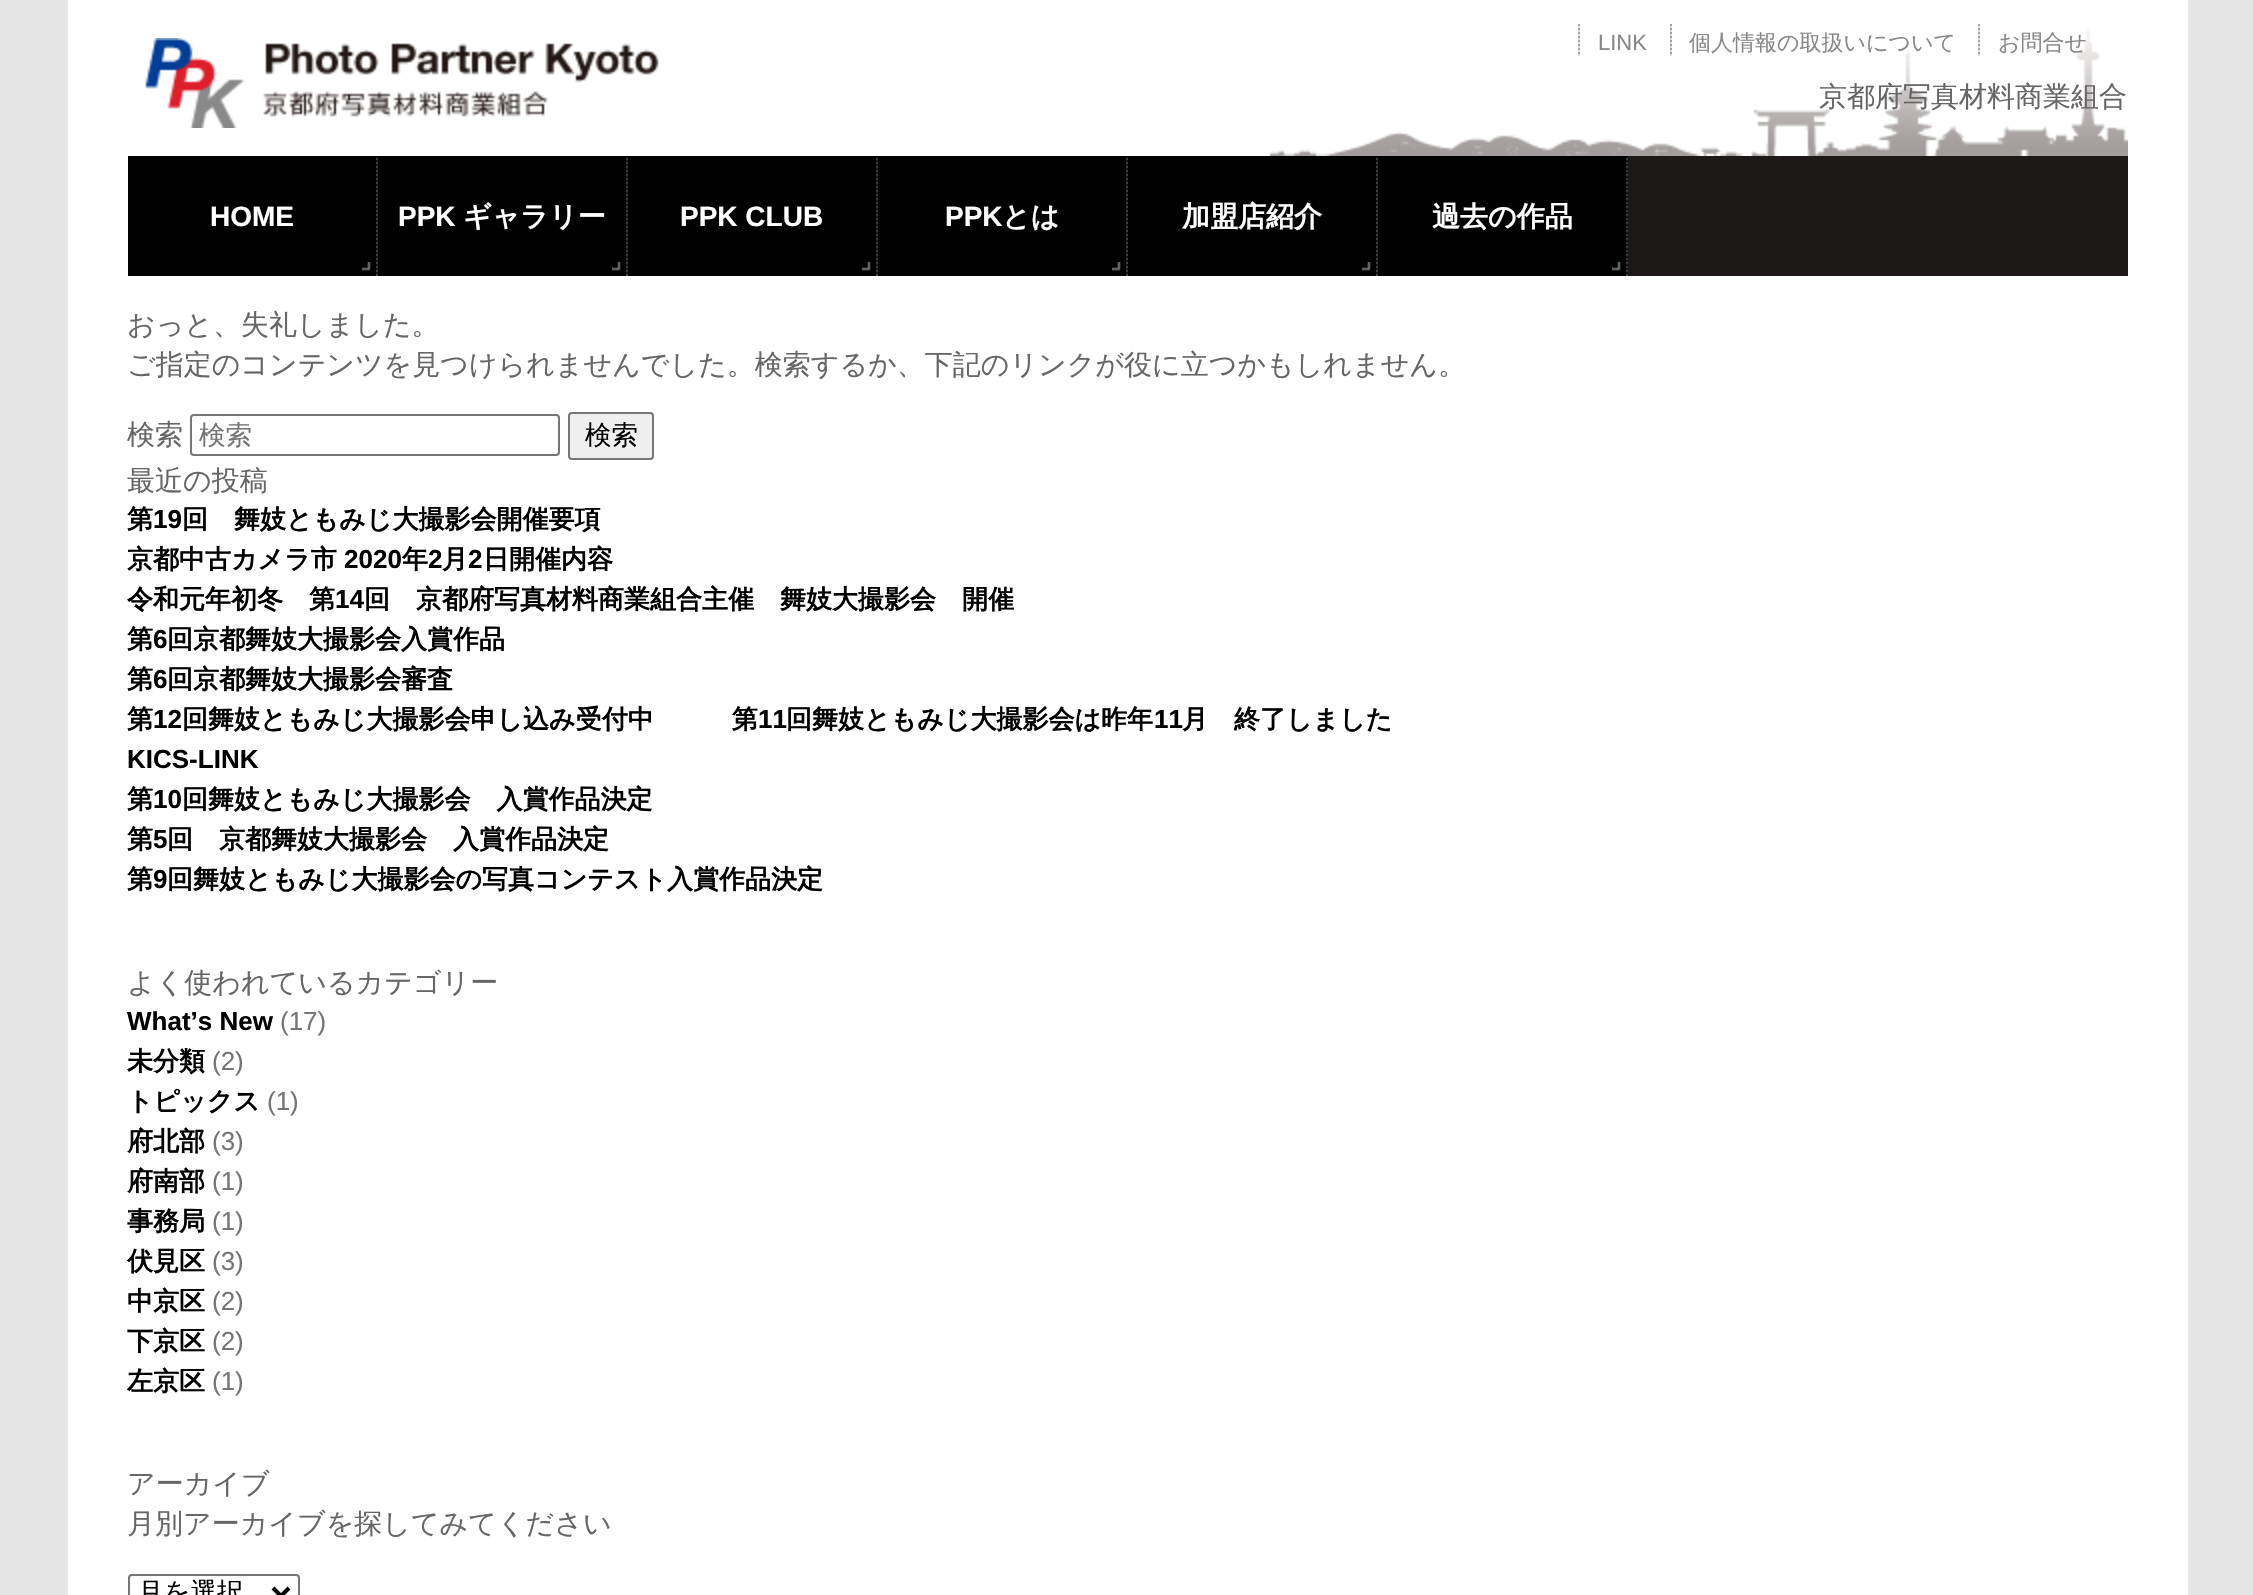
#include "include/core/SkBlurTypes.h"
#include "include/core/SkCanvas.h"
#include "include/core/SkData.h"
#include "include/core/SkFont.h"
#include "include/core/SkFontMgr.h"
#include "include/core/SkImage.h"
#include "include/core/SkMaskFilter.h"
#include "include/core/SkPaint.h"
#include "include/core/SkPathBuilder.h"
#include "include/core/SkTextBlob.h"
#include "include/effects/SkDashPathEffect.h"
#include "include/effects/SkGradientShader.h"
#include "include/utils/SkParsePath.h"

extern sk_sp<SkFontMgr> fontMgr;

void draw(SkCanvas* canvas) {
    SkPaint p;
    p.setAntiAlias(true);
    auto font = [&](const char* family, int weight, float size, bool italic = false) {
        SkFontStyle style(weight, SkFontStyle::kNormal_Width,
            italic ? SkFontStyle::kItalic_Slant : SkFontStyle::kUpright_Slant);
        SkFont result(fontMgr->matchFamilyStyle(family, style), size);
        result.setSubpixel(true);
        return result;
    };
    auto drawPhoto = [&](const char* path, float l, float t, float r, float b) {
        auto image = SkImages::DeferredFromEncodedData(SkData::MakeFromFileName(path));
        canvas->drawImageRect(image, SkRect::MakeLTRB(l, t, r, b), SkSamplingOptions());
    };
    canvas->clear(0xFFE5E5E5);
    p.setColor(0xFFFFFFFF);
    canvas->drawRect(SkRect::MakeLTRB(68, 0, 2188, 1595), p);
    drawPhoto("media/1.png", 1269, 27, 2128, 156);
    drawPhoto("media/2.png", 145, 38, 659, 128);
    drawPhoto("media/3.png", 1578, 24, 1580, 56);
    auto font1 = font("Liberation Sans", 400, 22);
    p.setColor(0xFF878787);
    canvas->drawString("LINK", 1598, 50, font1, p);
    drawPhoto("media/3.png", 1670, 24, 1672, 56);
    auto font2 = font("WenQuanYi Zen Hei", 500, 22);
    canvas->drawString("個人情報の取扱いについて", 1689, 50, font2, p);
    drawPhoto("media/3.png", 1978, 24, 1980, 56);
    canvas->drawString("お問合せ", 1998, 50, font2, p);
    auto font3 = font("WenQuanYi Zen Hei", 500, 28);
    p.setColor(0xFF666666);
    canvas->drawString("京都府写真材料商業組合", 1819, 106, font3, p);
    p.setColor(0xFF1D1919);
    canvas->drawRect(SkRect::MakeLTRB(1628, 156, 2128, 276), p);
    p.setColor(0xFF000000);
    canvas->drawRect(SkRect::MakeLTRB(128, 156, 1628, 276), p);
    drawPhoto("media/4.png", 376, 157, 378, 276);
    drawPhoto("media/5.png", 362, 262, 371, 271);
    auto font4 = font("Liberation Sans", 700, 28);
    p.setColor(0xFFFFFFFF);
    canvas->drawString("HOME", 210, 226, font4, p);
    drawPhoto("media/4.png", 626, 157, 628, 276);
    drawPhoto("media/5.png", 612, 262, 621, 271);
    canvas->drawString("PPK", 398, 226, font4, p);
    auto font5 = font("WenQuanYi Zen Hei", 700, 28);
    canvas->drawString("ギャラリー", 463, 226, font5, p);
    drawPhoto("media/4.png", 876, 157, 878, 276);
    drawPhoto("media/5.png", 862, 262, 871, 271);
    canvas->drawString("PPK CLUB", 680, 226, font4, p);
    drawPhoto("media/4.png", 1126, 157, 1128, 276);
    drawPhoto("media/5.png", 1112, 262, 1121, 271);
    canvas->drawString("PPK", 945, 226, font4, p);
    canvas->drawString("とは", 1002, 226, font5, p);
    drawPhoto("media/4.png", 1376, 157, 1378, 276);
    drawPhoto("media/5.png", 1362, 262, 1371, 271);
    canvas->drawString("加盟店紹介", 1182, 226, font5, p);
    drawPhoto("media/4.png", 1626, 157, 1628, 276);
    drawPhoto("media/5.png", 1612, 262, 1621, 271);
    canvas->drawString("過去の作品", 1432, 226, font5, p);
    p.setColor(0xFF666666);
    {
        const struct { const char* s; float x, y; } items[] = {
            {"おっと、失礼しました。", 127, 334},
            {"ご指定のコンテンツを見つけられませんでした。検索するか、下記のリンクが役に立つかもしれません。", 127, 374},
            {"検索", 127, 444},
        };
        for (auto [s, x, y] : items) {
            canvas->drawString(s, x, y, font3, p);
        }
    }
    p.setStyle(SkPaint::kStroke_Style);
    p.setStrokeWidth(2);
    p.setColor(0xFF767676);
    canvas->drawRoundRect(SkRect::MakeLTRB(191, 415, 559, 455), 3, 3, p);
    auto font6 = font("WenQuanYi Zen Hei", 500, 26.5f);
    p.setStyle(SkPaint::kFill_Style);
    p.setColor(0xFF757575);
    canvas->drawString("検索", 199, 444, font6, p);
    p.setColor(0xFFEFEFEF);
    canvas->drawRoundRect(SkRect::MakeLTRB(569, 413, 653, 459), 3, 3, p);
    p.setStyle(SkPaint::kStroke_Style);
    p.setColor(0xFF767676);
    canvas->drawRoundRect(SkRect::MakeLTRB(569, 413, 653, 459), 3, 3, p);
    p.setStyle(SkPaint::kFill_Style);
    p.setColor(0xFF000000);
    canvas->drawString("検索", 585, 444, font6, p);
    p.setColor(0xFF666666);
    canvas->drawString("最近の投稿", 127, 490, font3, p);
    auto font7 = font("WenQuanYi Zen Hei", 700, 26);
    p.setColor(0xFF000000);
    canvas->drawString("第", 127, 528, font7, p);
    auto font8 = font("Liberation Sans", 700, 26);
    canvas->drawString("19", 153, 528, font8, p);
    canvas->drawString("回　舞妓ともみじ大撮影会開催要項", 182, 528, font7, p);
    canvas->drawString("京都中古カメラ市", 127, 568, font7, p);
    canvas->drawString("2020", 344, 568, font8, p);
    canvas->drawString("年", 402, 568, font7, p);
    canvas->drawString("2", 428, 568, font8, p);
    canvas->drawString("月", 442, 568, font7, p);
    canvas->drawString("2", 468, 568, font8, p);
    canvas->drawString("日開催内容", 483, 568, font7, p);
    canvas->drawString("令和元年初冬　第", 127, 608, font7, p);
    canvas->drawString("14", 335, 608, font8, p);
    canvas->drawString("回　京都府写真材料商業組合主催　舞妓大撮影会　開催", 364, 608, font7, p);
    canvas->drawString("第", 127, 648, font7, p);
    canvas->drawString("6", 153, 648, font8, p);
    canvas->drawString("回京都舞妓大撮影会入賞作品", 167, 648, font7, p);
    canvas->drawString("第", 127, 688, font7, p);
    canvas->drawString("6", 153, 688, font8, p);
    canvas->drawString("回京都舞妓大撮影会審査", 167, 688, font7, p);
    canvas->drawString("第", 127, 728, font7, p);
    canvas->drawString("12", 153, 728, font8, p);
    canvas->drawString("回舞妓ともみじ大撮影会申し込み受付中　　　第", 182, 728, font7, p);
    canvas->drawString("11", 758, 728, font8, p);
    canvas->drawString("回舞妓ともみじ大撮影会は昨年", 786, 728, font7, p);
    canvas->drawString("11", 1154, 728, font8, p);
    canvas->drawString("月　終了しました", 1182, 728, font7, p);
    canvas->drawString("KICS-LINK", 127, 768, font8, p);
    canvas->drawString("第", 127, 808, font7, p);
    canvas->drawString("10", 153, 808, font8, p);
    canvas->drawString("回舞妓ともみじ大撮影会　入賞作品決定", 182, 808, font7, p);
    canvas->drawString("第", 127, 848, font7, p);
    canvas->drawString("5", 153, 848, font8, p);
    canvas->drawString("回　京都舞妓大撮影会　入賞作品決定", 167, 848, font7, p);
    canvas->drawString("第", 127, 888, font7, p);
    canvas->drawString("9", 153, 888, font8, p);
    canvas->drawString("回舞妓ともみじ大撮影会の写真コンテスト入賞作品決定", 167, 888, font7, p);
    p.setColor(0xFF666666);
    canvas->drawString("よく使われているカテゴリー", 127, 992, font3, p);
    p.setColor(0xFF000000);
    canvas->drawString("What’s New", 127, 1030, font8, p);
    auto font9 = font("Liberation Sans", 400, 26);
    p.setColor(0xFF757575);
    canvas->drawString("(17)", 280, 1030, font9, p);
    p.setColor(0xFF000000);
    canvas->drawString("未分類", 127, 1070, font7, p);
    p.setColor(0xFF757575);
    canvas->drawString("(2)", 212, 1070, font9, p);
    p.setColor(0xFF000000);
    canvas->drawString("トピックス", 127, 1110, font7, p);
    p.setColor(0xFF757575);
    canvas->drawString("(1)", 267, 1110, font9, p);
    p.setColor(0xFF000000);
    canvas->drawString("府北部", 127, 1150, font7, p);
    p.setColor(0xFF757575);
    canvas->drawString("(3)", 212, 1150, font9, p);
    p.setColor(0xFF000000);
    canvas->drawString("府南部", 127, 1190, font7, p);
    p.setColor(0xFF757575);
    canvas->drawString("(1)", 212, 1190, font9, p);
    p.setColor(0xFF000000);
    canvas->drawString("事務局", 127, 1230, font7, p);
    p.setColor(0xFF757575);
    canvas->drawString("(1)", 212, 1230, font9, p);
    p.setColor(0xFF000000);
    canvas->drawString("伏見区", 127, 1270, font7, p);
    p.setColor(0xFF757575);
    canvas->drawString("(3)", 212, 1270, font9, p);
    p.setColor(0xFF000000);
    canvas->drawString("中京区", 127, 1310, font7, p);
    p.setColor(0xFF757575);
    canvas->drawString("(2)", 212, 1310, font9, p);
    p.setColor(0xFF000000);
    canvas->drawString("下京区", 127, 1350, font7, p);
    p.setColor(0xFF757575);
    canvas->drawString("(2)", 212, 1350, font9, p);
    p.setColor(0xFF000000);
    canvas->drawString("左京区", 127, 1390, font7, p);
    p.setColor(0xFF757575);
    canvas->drawString("(1)", 212, 1390, font9, p);
    p.setColor(0xFF666666);
    canvas->drawString("アーカイブ", 127, 1493, font3, p);
    canvas->drawString("月別アーカイブを探してみてください", 127, 1533, font3, p);
    p.setStyle(SkPaint::kStroke_Style);
    p.setColor(0xFF767676);
    canvas->drawRoundRect(SkRect::MakeLTRB(129, 1575, 299, 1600), 3, 3, p);
    p.setStrokeWidth(4);
    p.setColor(0xFF000000);
    canvas->drawPath(SkPathBuilder().moveTo(273, 1588).lineTo(281, 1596).lineTo(289, 1588).detach(), p);
    p.setStyle(SkPaint::kFill_Style);
    canvas->drawString("月を選択", 137, 1601, font6, p);
}
